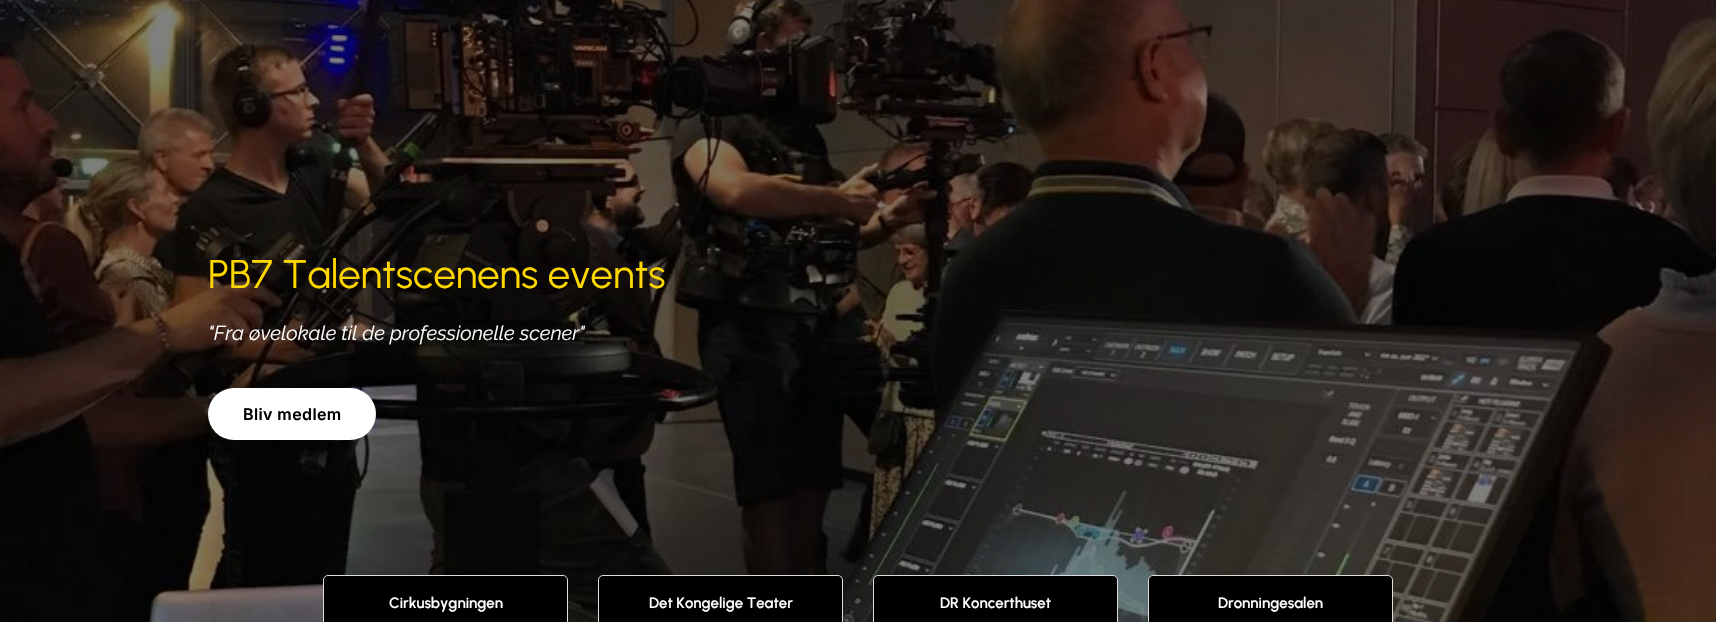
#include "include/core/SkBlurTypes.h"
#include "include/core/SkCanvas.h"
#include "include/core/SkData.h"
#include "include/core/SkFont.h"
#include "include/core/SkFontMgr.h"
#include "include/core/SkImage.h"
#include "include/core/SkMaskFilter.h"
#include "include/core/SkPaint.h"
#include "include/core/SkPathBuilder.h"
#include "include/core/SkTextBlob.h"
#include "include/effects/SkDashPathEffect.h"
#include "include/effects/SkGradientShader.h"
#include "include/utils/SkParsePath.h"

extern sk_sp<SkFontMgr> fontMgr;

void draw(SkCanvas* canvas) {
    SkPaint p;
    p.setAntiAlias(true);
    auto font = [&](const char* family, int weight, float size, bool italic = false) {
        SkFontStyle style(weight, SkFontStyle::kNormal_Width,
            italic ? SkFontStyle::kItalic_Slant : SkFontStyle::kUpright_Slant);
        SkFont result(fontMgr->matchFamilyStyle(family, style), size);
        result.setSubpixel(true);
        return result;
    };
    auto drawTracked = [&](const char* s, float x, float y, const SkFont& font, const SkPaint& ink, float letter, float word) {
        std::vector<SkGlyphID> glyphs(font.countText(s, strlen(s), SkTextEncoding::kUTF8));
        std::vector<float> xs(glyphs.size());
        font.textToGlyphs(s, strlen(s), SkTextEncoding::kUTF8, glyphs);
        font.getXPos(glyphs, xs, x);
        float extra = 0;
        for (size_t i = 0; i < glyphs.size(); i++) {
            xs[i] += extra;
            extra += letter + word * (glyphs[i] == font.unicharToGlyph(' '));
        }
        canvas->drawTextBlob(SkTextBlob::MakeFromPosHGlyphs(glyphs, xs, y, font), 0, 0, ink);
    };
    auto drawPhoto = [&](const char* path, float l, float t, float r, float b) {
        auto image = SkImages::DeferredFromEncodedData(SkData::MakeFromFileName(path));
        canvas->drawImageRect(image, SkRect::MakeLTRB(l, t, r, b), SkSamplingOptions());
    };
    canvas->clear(0xFFFFFFFF);
    drawPhoto("media/1.png", 0, 0, 1716, 622);
    auto font1 = font("Urbanist", 400, 40);
    p.setColor(0xFFFFD700);
    canvas->drawString("PB7 Talentscenens events", 208, 288, font1, p);
    auto font2 = font("Raleway", 400, 20, true);
    p.setColor(0xFFFFFFFF);
    canvas->drawString("\"Fra øvelokale til de professionelle scener\"", 208, 340, font2, p);
    canvas->drawRoundRect(SkRect::MakeLTRB(208, 388, 376, 440), 26, 26, p);
    auto font3 = font("Inter", 600, 16);
    p.setColor(0xFF000000);
    drawTracked("Bliv medlem", 243, 420, font3, p, 0.4f, 0);
    canvas->drawRoundRect(SkRect::MakeLTRB(323.5f, 575.5f, 567.5f, 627.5f), 4.5f, 4.5f, p);
    p.setStyle(SkPaint::kStroke_Style);
    p.setStrokeWidth(1);
    p.setColor(0xFFDDDDDD);
    canvas->drawRoundRect(SkRect::MakeLTRB(323.5f, 575.5f, 567.5f, 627.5f), 4.5f, 4.5f, p);
    auto font4 = font("Urbanist", 600, 15);
    p.setStyle(SkPaint::kFill_Style);
    p.setColor(0xFFFFFFFF);
    canvas->drawString("Cirkusbygningen", 389, 608, font4, p);
    p.setColor(0xFF000000);
    canvas->drawRoundRect(SkRect::MakeLTRB(598.5f, 575.5f, 842.5f, 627.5f), 4.5f, 4.5f, p);
    p.setStyle(SkPaint::kStroke_Style);
    p.setColor(0xFFDDDDDD);
    canvas->drawRoundRect(SkRect::MakeLTRB(598.5f, 575.5f, 842.5f, 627.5f), 4.5f, 4.5f, p);
    p.setStyle(SkPaint::kFill_Style);
    p.setColor(0xFFFFFFFF);
    canvas->drawString("Det Kongelige Teater", 649, 608, font4, p);
    p.setColor(0xFF000000);
    canvas->drawRoundRect(SkRect::MakeLTRB(873.5f, 575.5f, 1117.5f, 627.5f), 4.5f, 4.5f, p);
    p.setStyle(SkPaint::kStroke_Style);
    p.setColor(0xFFDDDDDD);
    canvas->drawRoundRect(SkRect::MakeLTRB(873.5f, 575.5f, 1117.5f, 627.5f), 4.5f, 4.5f, p);
    p.setStyle(SkPaint::kFill_Style);
    p.setColor(0xFFFFFFFF);
    canvas->drawString("DR Koncerthuset", 940, 608, font4, p);
    p.setColor(0xFF000000);
    canvas->drawRoundRect(SkRect::MakeLTRB(1148.5f, 575.5f, 1392.5f, 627.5f), 4.5f, 4.5f, p);
    p.setStyle(SkPaint::kStroke_Style);
    p.setColor(0xFFDDDDDD);
    canvas->drawRoundRect(SkRect::MakeLTRB(1148.5f, 575.5f, 1392.5f, 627.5f), 4.5f, 4.5f, p);
    p.setStyle(SkPaint::kFill_Style);
    p.setColor(0xFFFFFFFF);
    canvas->drawString("Dronningesalen", 1218, 608, font4, p);
}
